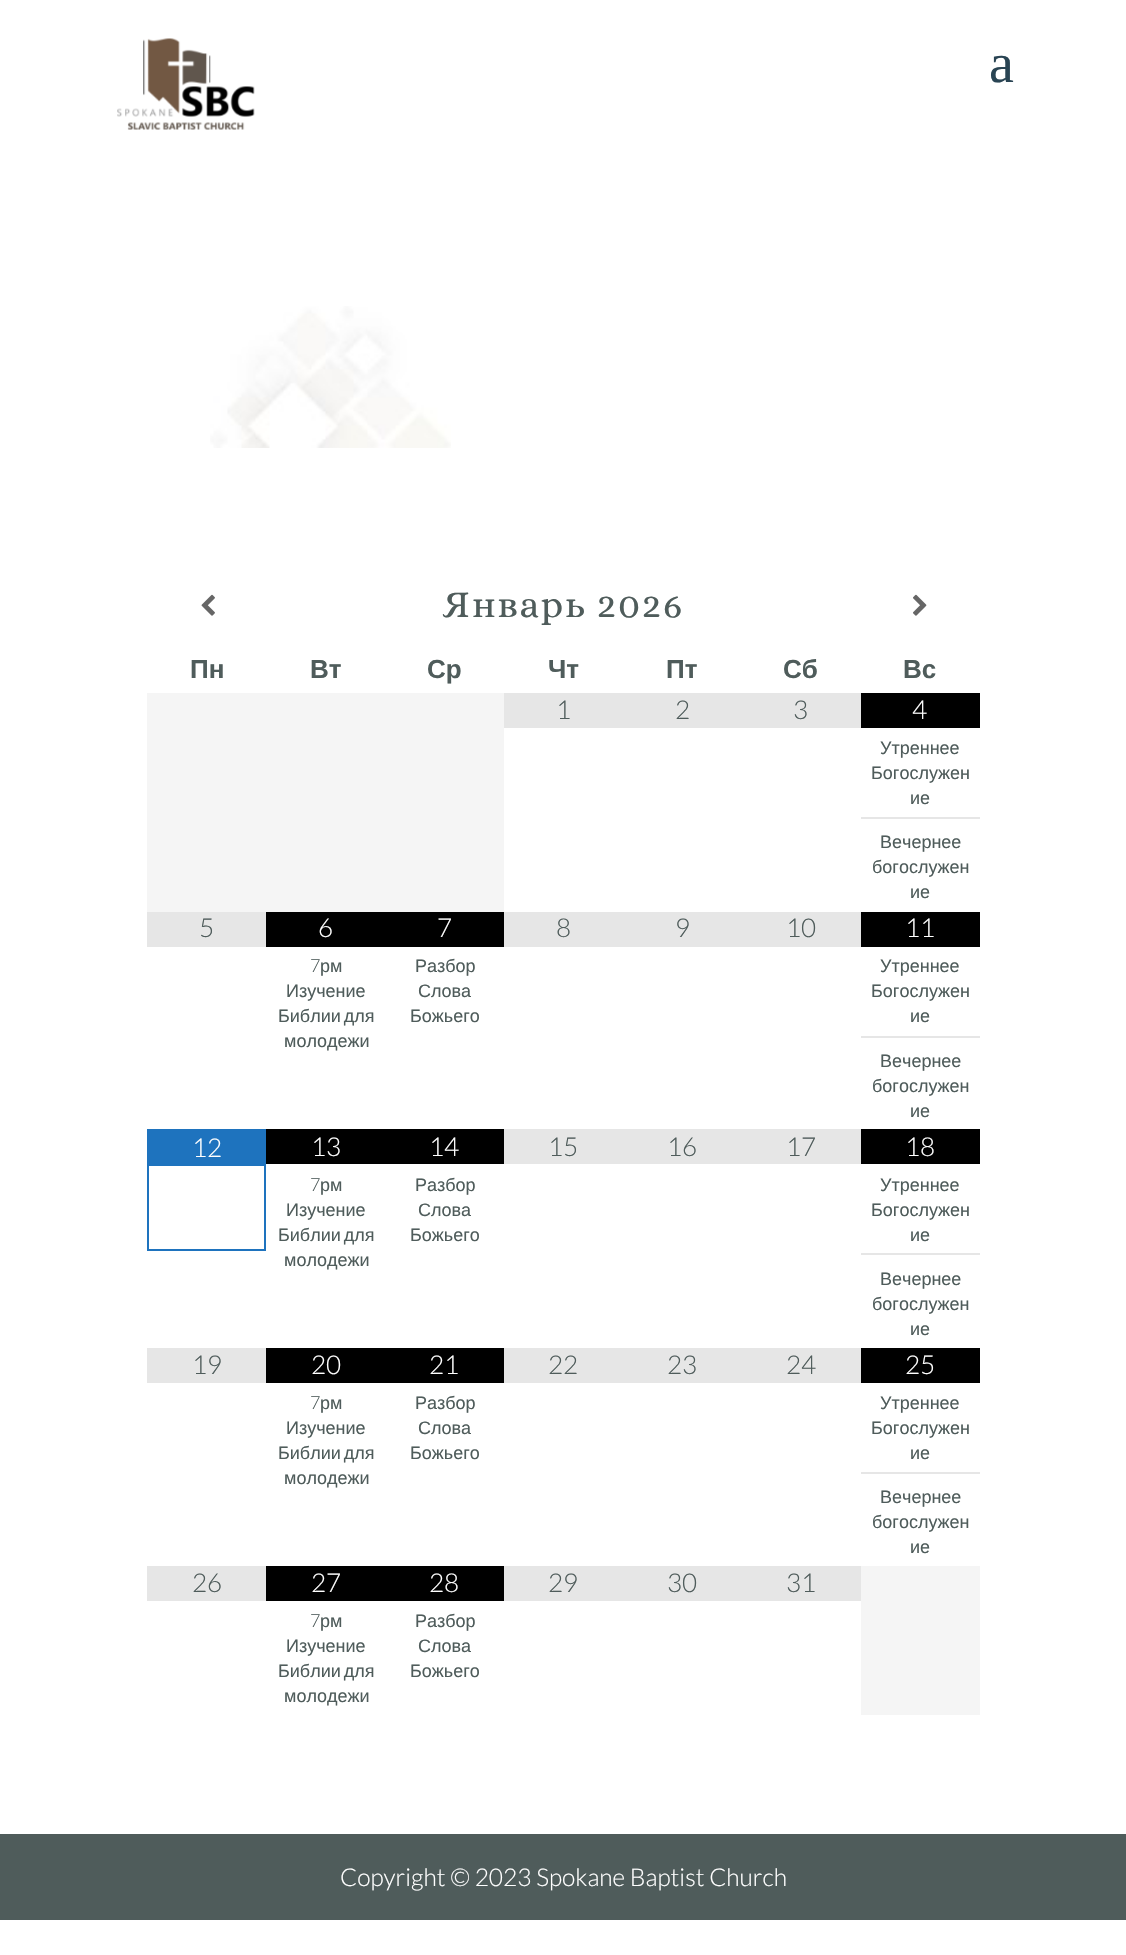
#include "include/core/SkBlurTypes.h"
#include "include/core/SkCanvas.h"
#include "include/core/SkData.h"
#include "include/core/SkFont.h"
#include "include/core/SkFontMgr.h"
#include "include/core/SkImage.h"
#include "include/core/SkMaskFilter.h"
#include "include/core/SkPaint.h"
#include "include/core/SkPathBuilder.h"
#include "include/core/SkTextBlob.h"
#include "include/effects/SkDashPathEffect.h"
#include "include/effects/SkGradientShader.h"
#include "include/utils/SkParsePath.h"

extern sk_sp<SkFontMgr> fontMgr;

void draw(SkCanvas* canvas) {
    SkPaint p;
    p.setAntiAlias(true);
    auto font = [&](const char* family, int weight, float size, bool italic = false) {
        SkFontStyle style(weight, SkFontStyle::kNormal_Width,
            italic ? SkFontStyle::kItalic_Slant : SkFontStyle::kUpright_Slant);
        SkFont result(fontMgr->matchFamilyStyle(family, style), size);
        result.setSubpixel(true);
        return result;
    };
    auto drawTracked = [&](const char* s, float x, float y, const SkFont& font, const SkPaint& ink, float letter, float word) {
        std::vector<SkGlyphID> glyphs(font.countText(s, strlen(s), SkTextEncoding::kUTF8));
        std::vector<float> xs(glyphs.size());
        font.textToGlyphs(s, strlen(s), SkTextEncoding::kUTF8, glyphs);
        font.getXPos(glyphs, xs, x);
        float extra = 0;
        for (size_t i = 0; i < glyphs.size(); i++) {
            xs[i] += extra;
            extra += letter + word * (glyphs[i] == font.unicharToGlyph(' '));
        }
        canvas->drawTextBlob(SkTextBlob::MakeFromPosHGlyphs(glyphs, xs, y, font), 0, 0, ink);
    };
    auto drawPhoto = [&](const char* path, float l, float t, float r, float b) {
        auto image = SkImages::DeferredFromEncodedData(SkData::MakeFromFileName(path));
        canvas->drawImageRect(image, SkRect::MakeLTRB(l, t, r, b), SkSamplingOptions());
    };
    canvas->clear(0xFFFFFFFF);
    drawPhoto("media/1.png", 117, 38, 255, 130);
    auto font1 = font("Liberation Serif", 400, 56);
    p.setColor(0xFF294453);
    canvas->drawString("a", 989, 82, font1, p);
    drawPhoto("media/2.png", 210, 306, 451, 448);
    drawPhoto("media/3.png", 201, 594, 215, 616);
    auto font2 = font("Alice", 400, 38.5f);
    p.setColor(0xFF4F5C5B);
    drawTracked("Январь 2026", 442, 617, font2, p, 1.75f, 0);
    drawPhoto("media/4.png", 913, 594, 927, 616);
    auto font3 = font("Liberation Sans", 700, 26);
    {
        const struct { const char* s; float x, y; } items[] = {
            {"Пн", 190, 678},
            {"Вт", 310, 678},
            {"Ср", 427, 678},
            {"Чт", 548, 678},
            {"Пт", 666, 678},
            {"Сб", 783, 678},
            {"Вс", 903, 678},
        };
        for (auto [s, x, y] : items) {
            canvas->drawString(s, x, y, font3, p);
        }
    }
    p.setColor(0xFFF5F5F5);
    canvas->drawRect(SkRect::MakeLTRB(147, 693, 504, 912), p);
    p.setColor(0xFFE6E6E6);
    canvas->drawRect(SkRect::MakeLTRB(504, 693, 861, 728), p);
    auto font4 = font("Lato", 300, 26);
    p.setColor(0xFF4F5C5B);
    {
        const struct { const char* s; float x, y; } items[] = {
            {"1", 556, 719},
            {"2", 675, 719},
            {"3", 793, 719},
        };
        for (auto [s, x, y] : items) {
            canvas->drawString(s, x, y, font4, p);
        }
    }
    p.setColor(0xFF000000);
    canvas->drawRect(SkRect::MakeLTRB(861, 693, 980, 728), p);
    p.setColor(0xFFFFFFFF);
    canvas->drawString("4", 912, 719, font4, p);
    p.setColor(0xFFE6E6E6);
    canvas->drawRect(SkRect::MakeLTRB(861, 817, 980, 819), p);
    auto font5 = font("Liberation Sans", 400, 18);
    p.setColor(0xFF4F5C5B);
    {
        const struct { const char* s; float x, y; } items[] = {
            {"Утреннее", 880, 754},
            {"Богослужен", 871, 779},
            {"ие", 910, 804},
            {"Вечернее", 880, 848},
            {"богослужен", 872, 873},
            {"ие", 910, 898},
        };
        for (auto [s, x, y] : items) {
            canvas->drawString(s, x, y, font5, p);
        }
    }
    p.setColor(0xFFE6E6E6);
    canvas->drawRect(SkRect::MakeLTRB(147, 912, 266, 947), p);
    p.setColor(0xFF4F5C5B);
    canvas->drawString("5", 199, 937, font4, p);
    p.setColor(0xFF000000);
    canvas->drawRect(SkRect::MakeLTRB(266, 912, 504, 947), p);
    p.setColor(0xFFFFFFFF);
    canvas->drawString("6", 318, 937, font4, p);
    auto font6 = font("Lato", 300, 18);
    p.setColor(0xFF4F5C5B);
    canvas->drawString("7", 310, 972, font6, p);
    canvas->drawString("рм", 320, 972, font5, p);
    canvas->drawString("Изучение", 286, 997, font5, p);
    drawTracked("Библии для", 278, 1022, font5, p, 0, -2);
    canvas->drawString("молодежи", 284, 1047, font5, p);
    p.setColor(0xFFFFFFFF);
    canvas->drawString("7", 437, 937, font4, p);
    p.setColor(0xFF4F5C5B);
    {
        const struct { const char* s; float x, y; } items[] = {
            {"Разбор", 415, 972},
            {"Слова", 418, 997},
            {"Божьего", 410, 1022},
        };
        for (auto [s, x, y] : items) {
            canvas->drawString(s, x, y, font5, p);
        }
    }
    p.setColor(0xFFE6E6E6);
    canvas->drawRect(SkRect::MakeLTRB(504, 912, 861, 947), p);
    p.setColor(0xFF4F5C5B);
    {
        const struct { const char* s; float x, y; } items[] = {
            {"8", 556, 937},
            {"9", 675, 937},
            {"10", 786, 937},
        };
        for (auto [s, x, y] : items) {
            canvas->drawString(s, x, y, font4, p);
        }
    }
    p.setColor(0xFF000000);
    canvas->drawRect(SkRect::MakeLTRB(861, 912, 980, 947), p);
    p.setColor(0xFFFFFFFF);
    canvas->drawString("11", 905, 937, font4, p);
    p.setColor(0xFFE6E6E6);
    canvas->drawRect(SkRect::MakeLTRB(861, 1036, 980, 1038), p);
    p.setColor(0xFF4F5C5B);
    {
        const struct { const char* s; float x, y; } items[] = {
            {"Утреннее", 880, 972},
            {"Богослужен", 871, 997},
            {"ие", 910, 1022},
            {"Вечернее", 880, 1067},
            {"богослужен", 872, 1092},
            {"ие", 910, 1117},
        };
        for (auto [s, x, y] : items) {
            canvas->drawString(s, x, y, font5, p);
        }
    }
    p.setStyle(SkPaint::kStroke_Style);
    p.setStrokeWidth(2);
    p.setColor(0xFF1E73BE);
    canvas->drawRect(SkRect::MakeLTRB(148, 1130, 265, 1250), p);
    p.setStyle(SkPaint::kFill_Style);
    canvas->drawRect(SkRect::MakeLTRB(149, 1131, 264, 1166), p);
    p.setColor(0xFFFFFFFF);
    canvas->drawString("12", 192, 1157, font4, p);
    p.setColor(0xFF000000);
    canvas->drawRect(SkRect::MakeLTRB(266, 1129, 504, 1164), p);
    p.setColor(0xFFFFFFFF);
    canvas->drawString("13", 311, 1156, font4, p);
    p.setColor(0xFF4F5C5B);
    canvas->drawString("7", 310, 1191, font6, p);
    canvas->drawString("рм", 320, 1191, font5, p);
    canvas->drawString("Изучение", 286, 1216, font5, p);
    drawTracked("Библии для", 278, 1241, font5, p, 0, -2);
    canvas->drawString("молодежи", 284, 1266, font5, p);
    p.setColor(0xFFFFFFFF);
    canvas->drawString("14", 429, 1156, font4, p);
    p.setColor(0xFF4F5C5B);
    {
        const struct { const char* s; float x, y; } items[] = {
            {"Разбор", 415, 1191},
            {"Слова", 418, 1216},
            {"Божьего", 410, 1241},
        };
        for (auto [s, x, y] : items) {
            canvas->drawString(s, x, y, font5, p);
        }
    }
    p.setColor(0xFFE6E6E6);
    canvas->drawRect(SkRect::MakeLTRB(504, 1129, 861, 1164), p);
    p.setColor(0xFF4F5C5B);
    {
        const struct { const char* s; float x, y; } items[] = {
            {"15", 548, 1156},
            {"16", 667, 1156},
            {"17", 786, 1156},
        };
        for (auto [s, x, y] : items) {
            canvas->drawString(s, x, y, font4, p);
        }
    }
    p.setColor(0xFF000000);
    canvas->drawRect(SkRect::MakeLTRB(861, 1129, 980, 1164), p);
    p.setColor(0xFFFFFFFF);
    canvas->drawString("18", 905, 1156, font4, p);
    p.setColor(0xFFE6E6E6);
    canvas->drawRect(SkRect::MakeLTRB(861, 1253, 980, 1255), p);
    p.setColor(0xFF4F5C5B);
    {
        const struct { const char* s; float x, y; } items[] = {
            {"Утреннее", 880, 1191},
            {"Богослужен", 871, 1216},
            {"ие", 910, 1241},
            {"Вечернее", 880, 1285},
            {"богослужен", 872, 1310},
            {"ие", 910, 1335},
        };
        for (auto [s, x, y] : items) {
            canvas->drawString(s, x, y, font5, p);
        }
    }
    p.setColor(0xFFE6E6E6);
    canvas->drawRect(SkRect::MakeLTRB(147, 1348, 266, 1383), p);
    p.setColor(0xFF4F5C5B);
    canvas->drawString("19", 192, 1374, font4, p);
    p.setColor(0xFF000000);
    canvas->drawRect(SkRect::MakeLTRB(266, 1348, 504, 1383), p);
    p.setColor(0xFFFFFFFF);
    canvas->drawString("20", 311, 1374, font4, p);
    p.setColor(0xFF4F5C5B);
    canvas->drawString("7", 310, 1409, font6, p);
    canvas->drawString("рм", 320, 1409, font5, p);
    canvas->drawString("Изучение", 286, 1434, font5, p);
    drawTracked("Библии для", 278, 1459, font5, p, 0, -2);
    canvas->drawString("молодежи", 284, 1484, font5, p);
    p.setColor(0xFFFFFFFF);
    canvas->drawString("21", 429, 1374, font4, p);
    p.setColor(0xFF4F5C5B);
    {
        const struct { const char* s; float x, y; } items[] = {
            {"Разбор", 415, 1409},
            {"Слова", 418, 1434},
            {"Божьего", 410, 1459},
        };
        for (auto [s, x, y] : items) {
            canvas->drawString(s, x, y, font5, p);
        }
    }
    p.setColor(0xFFE6E6E6);
    canvas->drawRect(SkRect::MakeLTRB(504, 1348, 861, 1383), p);
    p.setColor(0xFF4F5C5B);
    {
        const struct { const char* s; float x, y; } items[] = {
            {"22", 548, 1374},
            {"23", 667, 1374},
            {"24", 786, 1374},
        };
        for (auto [s, x, y] : items) {
            canvas->drawString(s, x, y, font4, p);
        }
    }
    p.setColor(0xFF000000);
    canvas->drawRect(SkRect::MakeLTRB(861, 1348, 980, 1383), p);
    p.setColor(0xFFFFFFFF);
    canvas->drawString("25", 905, 1374, font4, p);
    p.setColor(0xFFE6E6E6);
    canvas->drawRect(SkRect::MakeLTRB(861, 1472, 980, 1474), p);
    p.setColor(0xFF4F5C5B);
    {
        const struct { const char* s; float x, y; } items[] = {
            {"Утреннее", 880, 1409},
            {"Богослужен", 871, 1434},
            {"ие", 910, 1459},
            {"Вечернее", 880, 1503},
            {"богослужен", 872, 1528},
            {"ие", 910, 1553},
        };
        for (auto [s, x, y] : items) {
            canvas->drawString(s, x, y, font5, p);
        }
    }
    p.setColor(0xFFE6E6E6);
    canvas->drawRect(SkRect::MakeLTRB(147, 1566, 266, 1601), p);
    p.setColor(0xFF4F5C5B);
    canvas->drawString("26", 192, 1592, font4, p);
    p.setColor(0xFF000000);
    canvas->drawRect(SkRect::MakeLTRB(266, 1566, 504, 1601), p);
    p.setColor(0xFFFFFFFF);
    canvas->drawString("27", 311, 1592, font4, p);
    p.setColor(0xFF4F5C5B);
    canvas->drawString("7", 310, 1627, font6, p);
    canvas->drawString("рм", 320, 1627, font5, p);
    canvas->drawString("Изучение", 286, 1652, font5, p);
    drawTracked("Библии для", 278, 1677, font5, p, 0, -2);
    canvas->drawString("молодежи", 284, 1702, font5, p);
    p.setColor(0xFFFFFFFF);
    canvas->drawString("28", 429, 1592, font4, p);
    p.setColor(0xFF4F5C5B);
    {
        const struct { const char* s; float x, y; } items[] = {
            {"Разбор", 415, 1627},
            {"Слова", 418, 1652},
            {"Божьего", 410, 1677},
        };
        for (auto [s, x, y] : items) {
            canvas->drawString(s, x, y, font5, p);
        }
    }
    p.setColor(0xFFE6E6E6);
    canvas->drawRect(SkRect::MakeLTRB(504, 1566, 861, 1601), p);
    p.setColor(0xFF4F5C5B);
    {
        const struct { const char* s; float x, y; } items[] = {
            {"29", 548, 1592},
            {"30", 667, 1592},
            {"31", 786, 1592},
        };
        for (auto [s, x, y] : items) {
            canvas->drawString(s, x, y, font4, p);
        }
    }
    p.setColor(0xFFF5F5F5);
    canvas->drawRect(SkRect::MakeLTRB(861, 1566, 980, 1715), p);
    p.setColor(0xFF4F5C5B);
    canvas->drawRect(SkRect::MakeLTRB(0, 1834, 1126, 1920), p);
    auto font7 = font("Lato", 300, 24.5f);
    p.setColor(0xFFFFFFFF);
    canvas->drawString("Copyright © 2023 Spokane Baptist Church", 340, 1886, font7, p);
}
